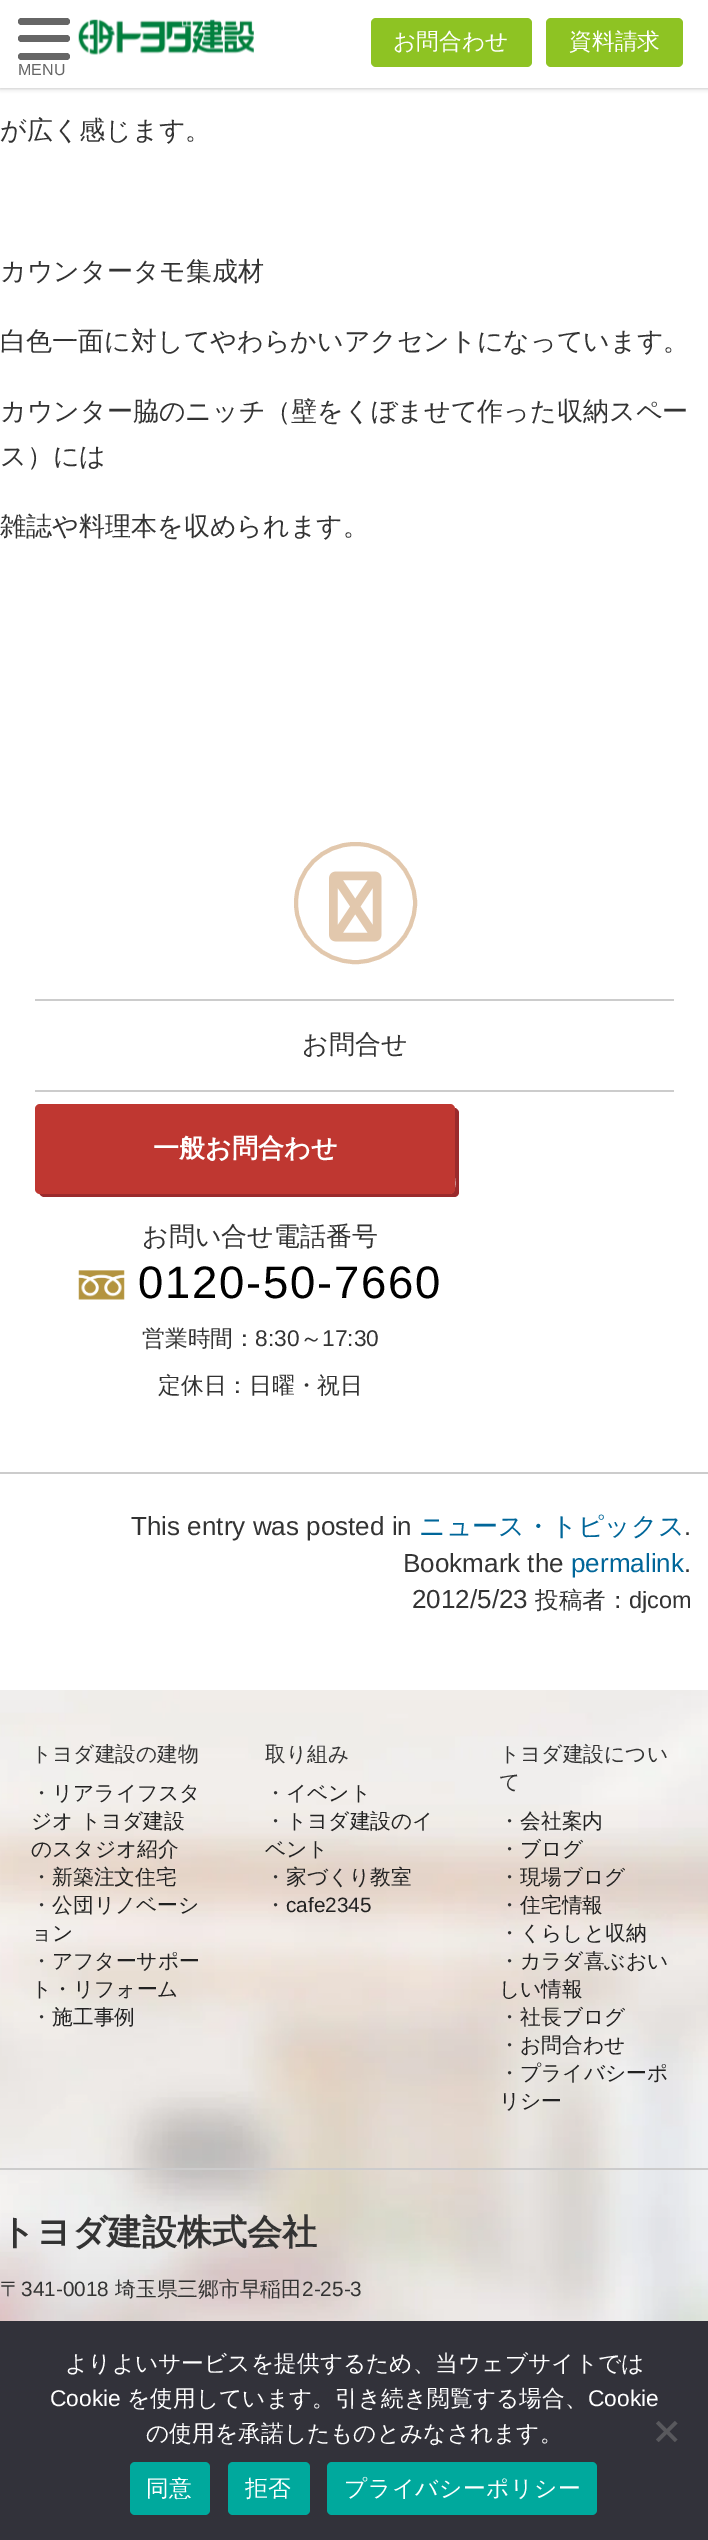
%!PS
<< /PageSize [708 2540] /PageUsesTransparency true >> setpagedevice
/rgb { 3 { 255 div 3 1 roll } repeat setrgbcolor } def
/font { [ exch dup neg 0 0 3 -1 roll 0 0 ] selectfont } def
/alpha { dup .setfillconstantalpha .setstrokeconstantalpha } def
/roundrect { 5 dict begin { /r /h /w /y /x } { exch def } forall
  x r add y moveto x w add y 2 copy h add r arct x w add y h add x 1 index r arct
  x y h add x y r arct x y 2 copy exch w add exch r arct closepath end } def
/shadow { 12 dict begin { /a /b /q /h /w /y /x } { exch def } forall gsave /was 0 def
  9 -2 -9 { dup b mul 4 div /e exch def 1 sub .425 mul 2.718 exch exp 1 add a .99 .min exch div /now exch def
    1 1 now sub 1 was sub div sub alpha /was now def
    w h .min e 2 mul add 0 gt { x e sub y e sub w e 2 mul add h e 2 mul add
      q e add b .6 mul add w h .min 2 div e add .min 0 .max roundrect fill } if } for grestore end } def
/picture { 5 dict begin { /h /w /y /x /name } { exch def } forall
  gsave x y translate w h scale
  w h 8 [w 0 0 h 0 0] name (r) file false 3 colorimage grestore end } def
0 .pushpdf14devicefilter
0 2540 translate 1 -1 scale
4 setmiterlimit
255 255 255 rgb
0 0 708 2540 rectfill
0 0 0 rgb
0 0 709 88 0 2.5 0.3 shadow
255 255 255 rgb
0 0 708 88 rectfill
(img/1.rgb) 78 19 176 36 picture
142 195 35 rgb
371 18 161 49 5 roundrect fill
546 18 137 49 5 roundrect fill
102 102 102 rgb
18 18 52 7 3.5 roundrect fill
18 35 52 7 3.5 roundrect fill
18 53 52 7 3.5 roundrect fill
204 204 204 rgb
0 1472 708 2 rectfill
226 200 173 rgb
4 setlinewidth
296 844 119 118 59 roundrect stroke
(img/2.rgb) 329 871 53 71 picture
204 204 204 rgb
35 999 639 2 rectfill
35 1090 639 2 rectfill
154 42 44 rgb
39 1193 moveto 40 1195 42 1197 44 1197 curveto 454 1197 lineto 457 1197 459 1195 459 1192 curveto 459 1113 lineto 459 1111 457 1108 455 1108 curveto 455 1175 lineto 455 1178 458 1193 450 1194 curveto closepath fill
191 55 49 rgb
35 1104 420 90 5 roundrect fill
(img/3.rgb) 78 1270 47 30 picture
(img/4.rgb) 0 1690 708 631 picture
204 204 204 rgb
0 2168 708 2 rectfill
50 50 58 rgb
0 2321 708 219 rectfill
89 89 93 rgb
675 2421 moveto 677.5 2423.5 lineto 658.5 2442 lineto 656 2439.5 lineto closepath fill
656 2423.5 moveto 658.5 2421 lineto 677.5 2439.5 lineto 675 2442 lineto closepath fill
0 169 157 rgb
130 2462 80 53 5 roundrect fill
228 2462 82 53 5 roundrect fill
327 2462 270 53 5 roundrect fill
/WenQuanYiZenHei-Medium 22.75 font
255 255 255 rgb
393 49 moveto (お問合わせ) show
569 49 moveto (資料請求) show
/LiberationSans-Regular 16 font
102 102 102 rgb
18 75 moveto (MENU) show
/WenQuanYiZenHei-Medium 26.05 font
51 51 51 rgb
[
  [(が広く感じます。) 0 139]
  [(カウンタータモ集成材) 0 280]
  [(白色一面に対してやわらかいアクセントになっています。) 0 350]
  [(カウンター脇のニッチ（壁をくぼませて作った収納スペー) 0 420]
  [(ス）には) 0 465]
  [(雑誌や料理本を収められます。) 0 535]
  [(お問合せ) 302 1053]
] { aload pop moveto show } forall
/WenQuanYiZenHei-Bold 26.05 font
255 255 255 rgb
153 1157 moveto (一般お問合わせ) show
/WenQuanYiZenHei-Medium 26.05 font
51 51 51 rgb
142 1245 moveto (お問い合せ電話番号) show
/LiberationSans-Regular 45.5 font
0 0 0 rgb
138 1298 moveto 1.75 0 (0120-50-7660) ashow
/WenQuanYiZenHei-Medium 22.75 font
51 51 51 rgb
142 1346 moveto (営業時間：) show
/LiberationSans-Regular 22.75 font
255 1346 moveto (8:30) show
/WenQuanYiZenHei-Medium 22.75 font
300 1346 moveto (～) show
/LiberationSans-Regular 22.75 font
322 1346 moveto (17:30) show
/WenQuanYiZenHei-Medium 22.75 font
158 1393 moveto (定休日：日曜・祝日) show
/LiberationSans-Regular 26.05 font
131 1535 moveto (This entry was posted in) show
/WenQuanYiZenHei-Medium 26.05 font
0 102 153 rgb
419 1535 moveto (ニュース・トピックス) show
/LiberationSans-Regular 26.05 font
51 51 51 rgb
684 1535 moveto (.) show
403 1572 moveto (Bookmark the) show
0 102 153 rgb
571 1572 moveto (permalink) show
51 51 51 rgb
684 1572 moveto (.) show
412 1608 moveto (2012/5/23) show
/WenQuanYiZenHei-Medium 23.5 font
535 1608 moveto (投稿者：) show
/LiberationSans-Regular 23.5 font
629 1608 moveto (djcom) show
/WenQuanYiZenHei-Medium 20.75 font
31 1761 moveto (トヨダ建設の建物) show
31 1800 moveto (・) show
34 34 34 rgb
[
  [(リアライフスタ) 52 1800]
  [(ジオ トヨダ建設) 31 1828]
  [(のスタジオ紹介) 31 1856]
] { aload pop moveto show } forall
51 51 51 rgb
31 1884 moveto (・) show
34 34 34 rgb
52 1884 moveto (新築注文住宅) show
51 51 51 rgb
31 1912 moveto (・) show
34 34 34 rgb
52 1912 moveto (公団リノベーシ) show
31 1940 moveto (ョン) show
51 51 51 rgb
31 1968 moveto (・) show
34 34 34 rgb
52 1968 moveto (アフターサポー) show
31 1996 moveto (ト・リフォーム) show
51 51 51 rgb
31 2024 moveto (・) show
34 34 34 rgb
52 2024 moveto (施工事例) show
51 51 51 rgb
265 1761 moveto (取り組み) show
265 1800 moveto (・) show
34 34 34 rgb
286 1800 moveto (イベント) show
51 51 51 rgb
265 1828 moveto (・) show
34 34 34 rgb
286 1828 moveto (トヨダ建設のイ) show
265 1856 moveto (ベント) show
51 51 51 rgb
265 1884 moveto (・) show
34 34 34 rgb
286 1884 moveto (家づくり教室) show
51 51 51 rgb
265 1912 moveto (・) show
/LiberationSans-Regular 20.75 font
34 34 34 rgb
286 1912 moveto (cafe2345) show
/WenQuanYiZenHei-Medium 20.75 font
51 51 51 rgb
[
  [(トヨダ建設につい) 499 1761]
  [(て) 499 1789]
  [(・) 499 1828]
] { aload pop moveto show } forall
34 34 34 rgb
520 1828 moveto (会社案内) show
51 51 51 rgb
499 1856 moveto (・) show
34 34 34 rgb
520 1856 moveto (ブログ) show
51 51 51 rgb
499 1884 moveto (・) show
34 34 34 rgb
520 1884 moveto (現場ブログ) show
51 51 51 rgb
499 1912 moveto (・) show
34 34 34 rgb
520 1912 moveto (住宅情報) show
51 51 51 rgb
499 1940 moveto (・) show
34 34 34 rgb
520 1940 moveto (くらしと収納) show
51 51 51 rgb
499 1968 moveto (・) show
34 34 34 rgb
520 1968 moveto (カラダ喜ぶおい) show
499 1996 moveto (しい情報) show
51 51 51 rgb
499 2024 moveto (・) show
34 34 34 rgb
520 2024 moveto (社長ブログ) show
51 51 51 rgb
499 2052 moveto (・) show
34 34 34 rgb
520 2052 moveto (お問合わせ) show
51 51 51 rgb
499 2080 moveto (・) show
34 34 34 rgb
520 2080 moveto (プライバシーポ) show
499 2108 moveto (リシー) show
/WenQuanYiZenHei-Bold 35 font
51 51 51 rgb
0 2244 moveto (トヨダ建設株式会社) show
/WenQuanYiZenHei-Medium 20.75 font
0 2296 moveto (〒) show
/LiberationSans-Regular 20.75 font
21 2296 moveto (341-0018) show
/WenQuanYiZenHei-Medium 20.75 font
115 2296 moveto (埼玉県三郷市早稲田) show
/LiberationSans-Regular 20.75 font
302 2296 moveto (2-25-3) show
/WenQuanYiZenHei-Medium 22.75 font
255 255 255 rgb
65 2371 moveto (よりよいサービスを提供するため、当ウェブサイトでは) show
/LiberationSans-Regular 22.75 font
50 2406 moveto (Cookie) show
/WenQuanYiZenHei-Medium 22.75 font
127 2406 moveto (を使用しています。引き続き閲覧する場合、) show
/LiberationSans-Regular 22.75 font
588 2406 moveto (Cookie) show
/WenQuanYiZenHei-Medium 22.75 font
146 2441 moveto (の使用を承諾したものとみなされます。) show
146 2496 moveto 0.5 0 (同意) ashow
245 2496 moveto 0.5 0 (拒否) ashow
344 2496 moveto 0.5 0 (プライバシーポリシー) ashow
.poppdf14devicefilter showpage
